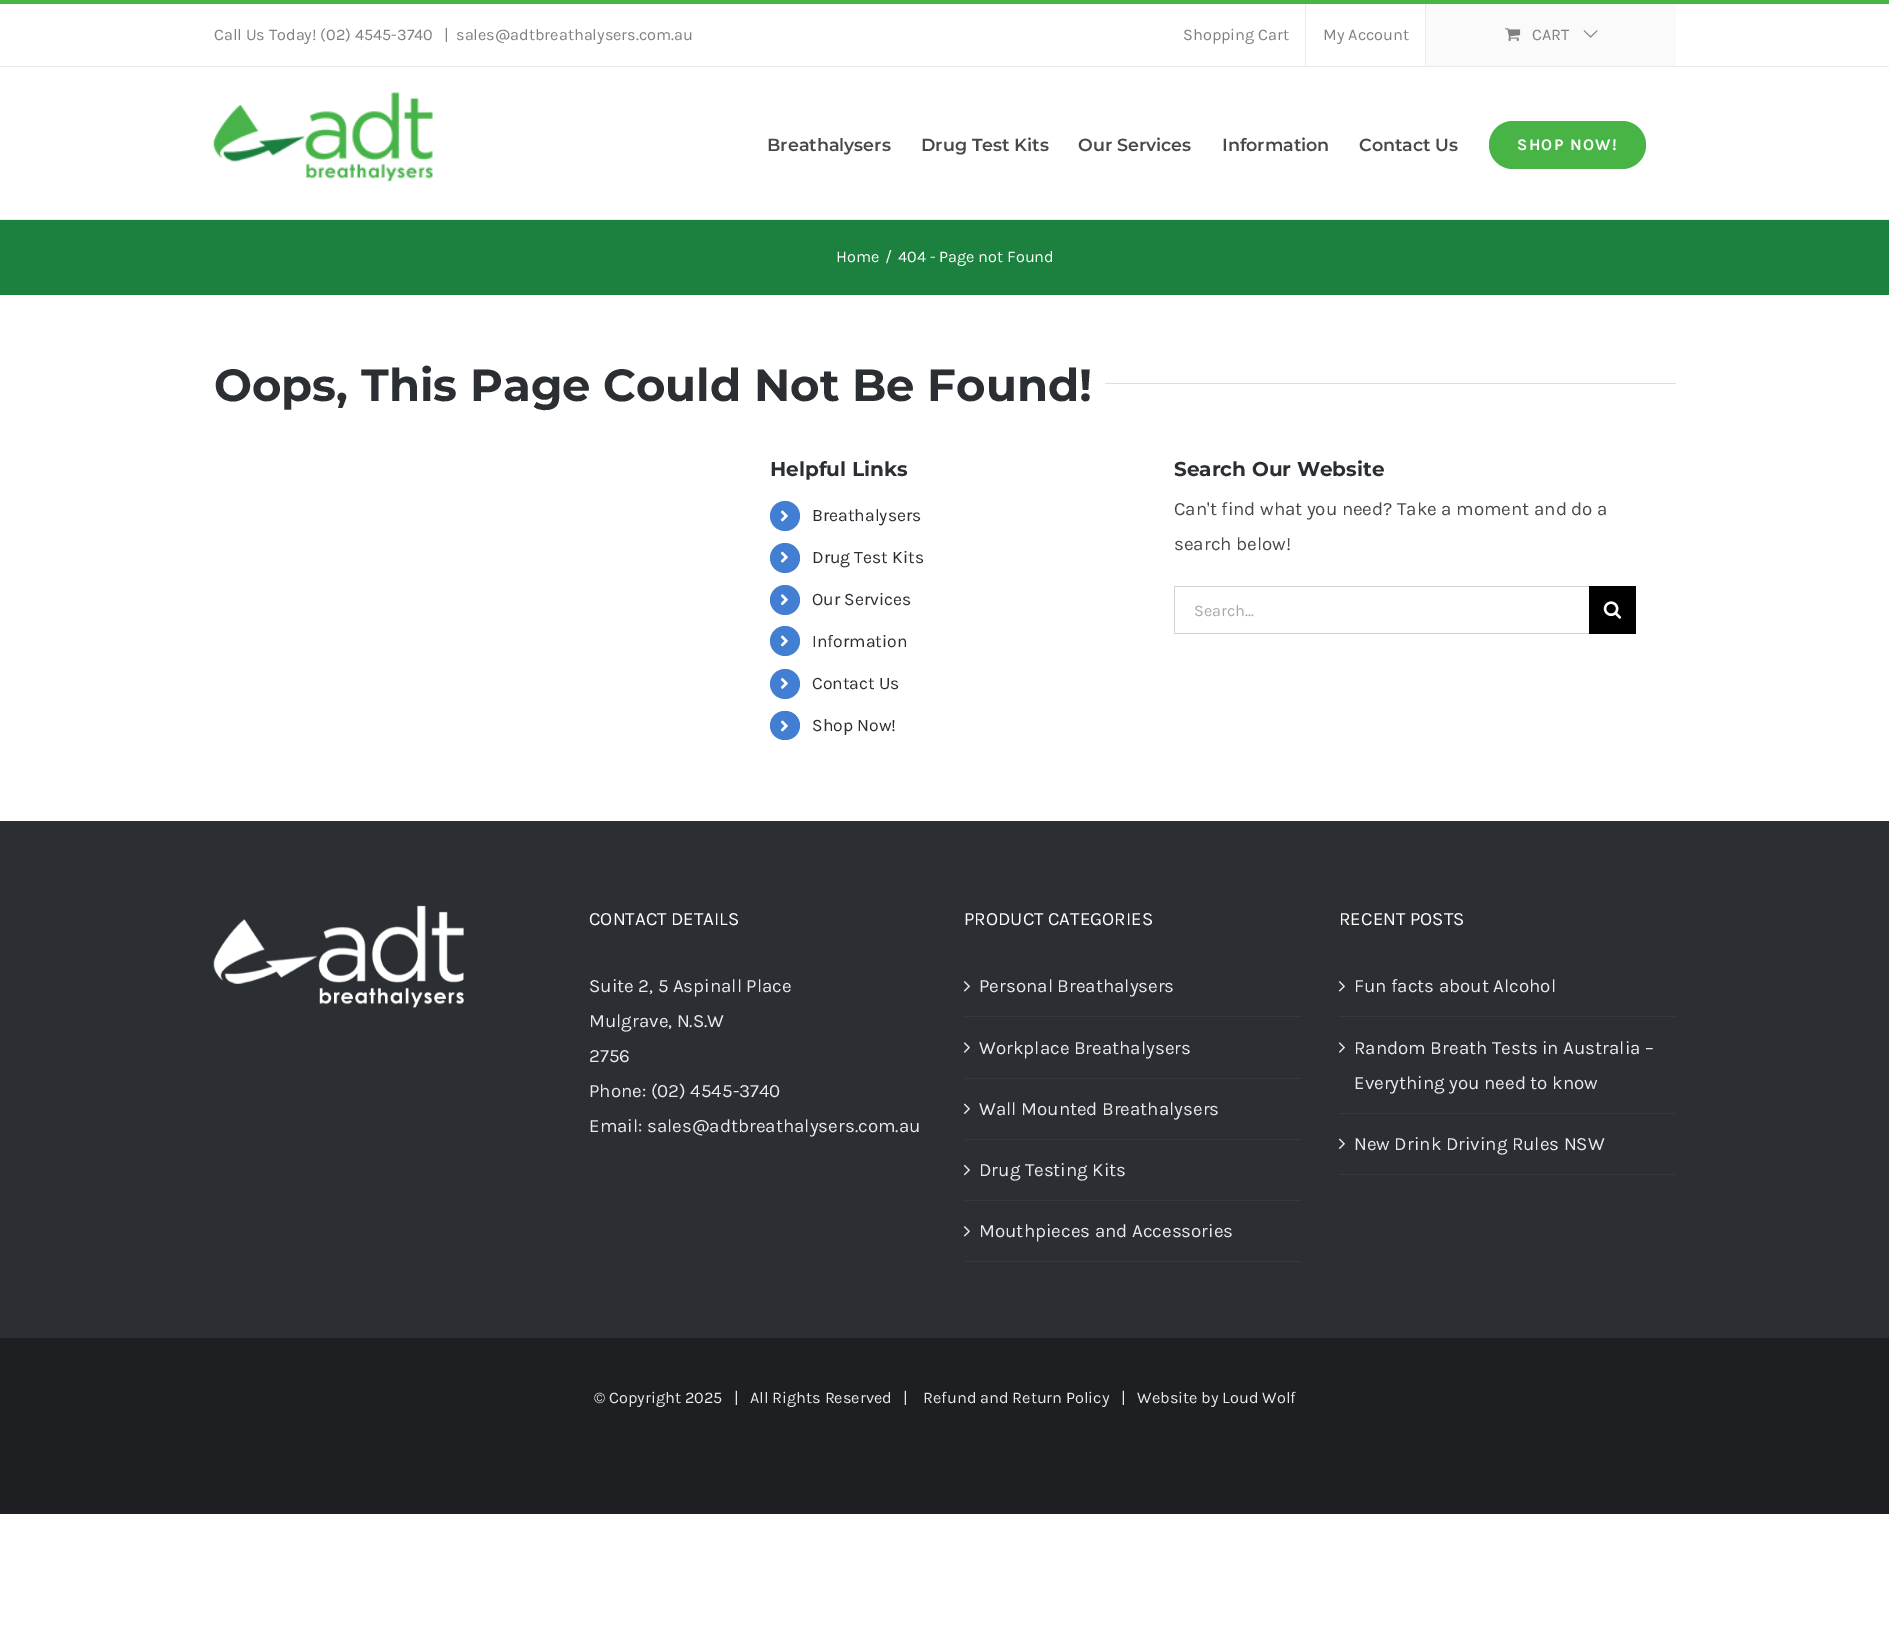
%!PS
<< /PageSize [1889 1637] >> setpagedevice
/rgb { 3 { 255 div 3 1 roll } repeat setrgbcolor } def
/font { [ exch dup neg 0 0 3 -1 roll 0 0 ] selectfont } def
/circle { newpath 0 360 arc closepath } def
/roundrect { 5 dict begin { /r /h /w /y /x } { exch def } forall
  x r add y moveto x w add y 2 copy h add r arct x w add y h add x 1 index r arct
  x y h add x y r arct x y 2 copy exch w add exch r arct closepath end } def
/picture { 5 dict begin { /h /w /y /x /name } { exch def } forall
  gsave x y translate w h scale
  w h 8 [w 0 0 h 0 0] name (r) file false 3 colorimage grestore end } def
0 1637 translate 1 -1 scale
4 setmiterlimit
255 255 255 rgb
0 0 1889 1637 rectfill
[
  [0 0 1889 4 72 180 69]
  [0 66 1889 1 234 234 234]
  [1305 4 1 62 234 234 234]
  [1425 4 1 62 234 234 234]
  [1426 4 250 62 250 250 250]
] { aload pop rgb rectfill } forall
(img/1.rgb) 1505 28 16 13 picture
(img/2.rgb) 1583 30 15 8 picture
234 234 234 rgb
0 219 1889 1 rectfill
(img/3.rgb) 213 92 220 90 picture
72 180 69 rgb
1489 121 157 48 24 roundrect fill
28 128 63 rgb
0 220 1889 75 rectfill
224 222 222 rgb
1105 383 571 1 rectfill
66 126 209 rgb
785 516 15 circle fill
(img/4.rgb) 780 510 8 12 picture
785 558 15 circle fill
(img/5.rgb) 780 551 8 12 picture
785 600 15 circle fill
(img/6.rgb) 780 594 8 12 picture
785 641 15 circle fill
(img/4.rgb) 780 635 8 12 picture
785 684 15 circle fill
(img/7.rgb) 780 678 8 11 picture
770 711 30 29 14.5 roundrect fill
(img/4.rgb) 780 720 8 12 picture
[
  [1174 586 415 1 210 210 210]
  [1174 633 415 1 210 210 210]
  [1174 586 1 48 210 210 210]
  [1589 586 47 48 0 0 0]
] { aload pop rgb rectfill } forall
(img/8.rgb) 1603 601 19 18 picture
43 46 50 rgb
0 821 1889 517 rectfill
(img/9.rgb) 213 905 251 103 picture
53 56 60 rgb
964 1016 337 1 rectfill
(img/10.rgb) 963 981 7 11 picture
964 1078 337 1 rectfill
(img/11.rgb) 963 1042 7 11 picture
964 1139 337 1 rectfill
(img/12.rgb) 963 1103 7 11 picture
964 1200 337 1 rectfill
(img/13.rgb) 963 1164 7 12 picture
964 1261 337 1 rectfill
(img/10.rgb) 963 1226 7 11 picture
1339 1016 337 1 rectfill
(img/10.rgb) 1338 981 7 11 picture
1339 1113 337 1 rectfill
(img/11.rgb) 1338 1042 7 11 picture
1339 1174 337 1 rectfill
(img/12.rgb) 1338 1138 7 11 picture
29 31 34 rgb
0 1338 1889 176 rectfill
/Karla-Regular 16.25 font
128 128 128 rgb
[
  [(Call Us Today! \(02\) 4545-3740) 214 40]
  [(|) 444 40]
  [(sales@adtbreathalysers.com.au) 456 40]
  [(Shopping Cart) 1183 40]
  [(My Account) 1323 40]
  [(CART) 1532 40]
] { aload pop moveto show } forall
/Montserrat-SemiBold 17.5 font
73 73 73 rgb
[
  [(Breathalysers) 767 151]
  [(Drug Test Kits) 921 151]
  [(Our Services) 1078 151]
  [(Information) 1222 151]
  [(Contact Us) 1359 151]
] { aload pop moveto show } forall
/Karla-Bold 16.25 font
255 255 255 rgb
1517 150 moveto 1.25 0 (SHOP NOW!) ashow
/Karla-Regular 16.25 font
[
  [(Home) 836 262]
  [(/) 885 262]
  [(404 - Page not Found) 898 262]
] { aload pop moveto show } forall
/Montserrat-Bold 45 font
43 46 50 rgb
214 401 moveto (Oops, This Page Could Not Be Found!) show
/Montserrat-Bold 20 font
770 476 moveto (Helpful Links) show
/Karla-Regular 17.5 font
[
  [(Breathalysers) 812 521]
  [(Drug Test Kits) 812 563]
  [(Our Services) 812 605]
  [(Information) 812 647]
  [(Contact Us) 812 689]
  [(Shop Now!) 812 731]
] { aload pop moveto show } forall
/Montserrat-Bold 20 font
1174 476 moveto (Search Our Website) show
/Karla-Regular 18.75 font
73 73 73 rgb
1174 515 moveto (Can't find what you need? Take a moment and do a) show
1174 550 moveto (search below!) show
/Karla-Regular 16.25 font
170 169 169 rgb
1194 616 moveto (Search...) show
/Karla-Regular 18.75 font
255 255 255 rgb
589 925 moveto (CONTACT DETAILS) show
234 234 234 rgb
[
  [(Suite 2, 5 Aspinall Place) 589 992]
  [(Mulgrave, N.S.W) 589 1027]
  [(2756) 589 1062]
  [(Phone: \(02\) 4545-3740) 589 1097]
  [(Email: sales@adtbreathalysers.com.au) 589 1132]
] { aload pop moveto show } forall
255 255 255 rgb
964 925 moveto (PRODUCT CATEGORIES) show
234 234 234 rgb
[
  [(Personal Breathalysers) 979 992]
  [(Workplace Breathalysers) 979 1054]
  [(Wall Mounted Breathalysers) 979 1115]
  [(Drug Testing Kits) 979 1176]
  [(Mouthpieces and Accessories) 979 1237]
] { aload pop moveto show } forall
255 255 255 rgb
1339 925 moveto (RECENT POSTS) show
234 234 234 rgb
[
  [(Fun facts about Alcohol) 1354 992]
  [(Random Breath Tests in Australia –) 1354 1054]
  [(Everything you need to know) 1354 1089]
  [(New Drink Driving Rules NSW) 1354 1150]
] { aload pop moveto show } forall
/Karla-Regular 16.25 font
[
  [(© Copyright 2025   |   All Rights Reserved   |) 594 1403]
  [(Refund and Return Policy) 923 1403]
  [(|   Website by Loud Wolf) 1121 1403]
] { aload pop moveto show } forall
showpage
